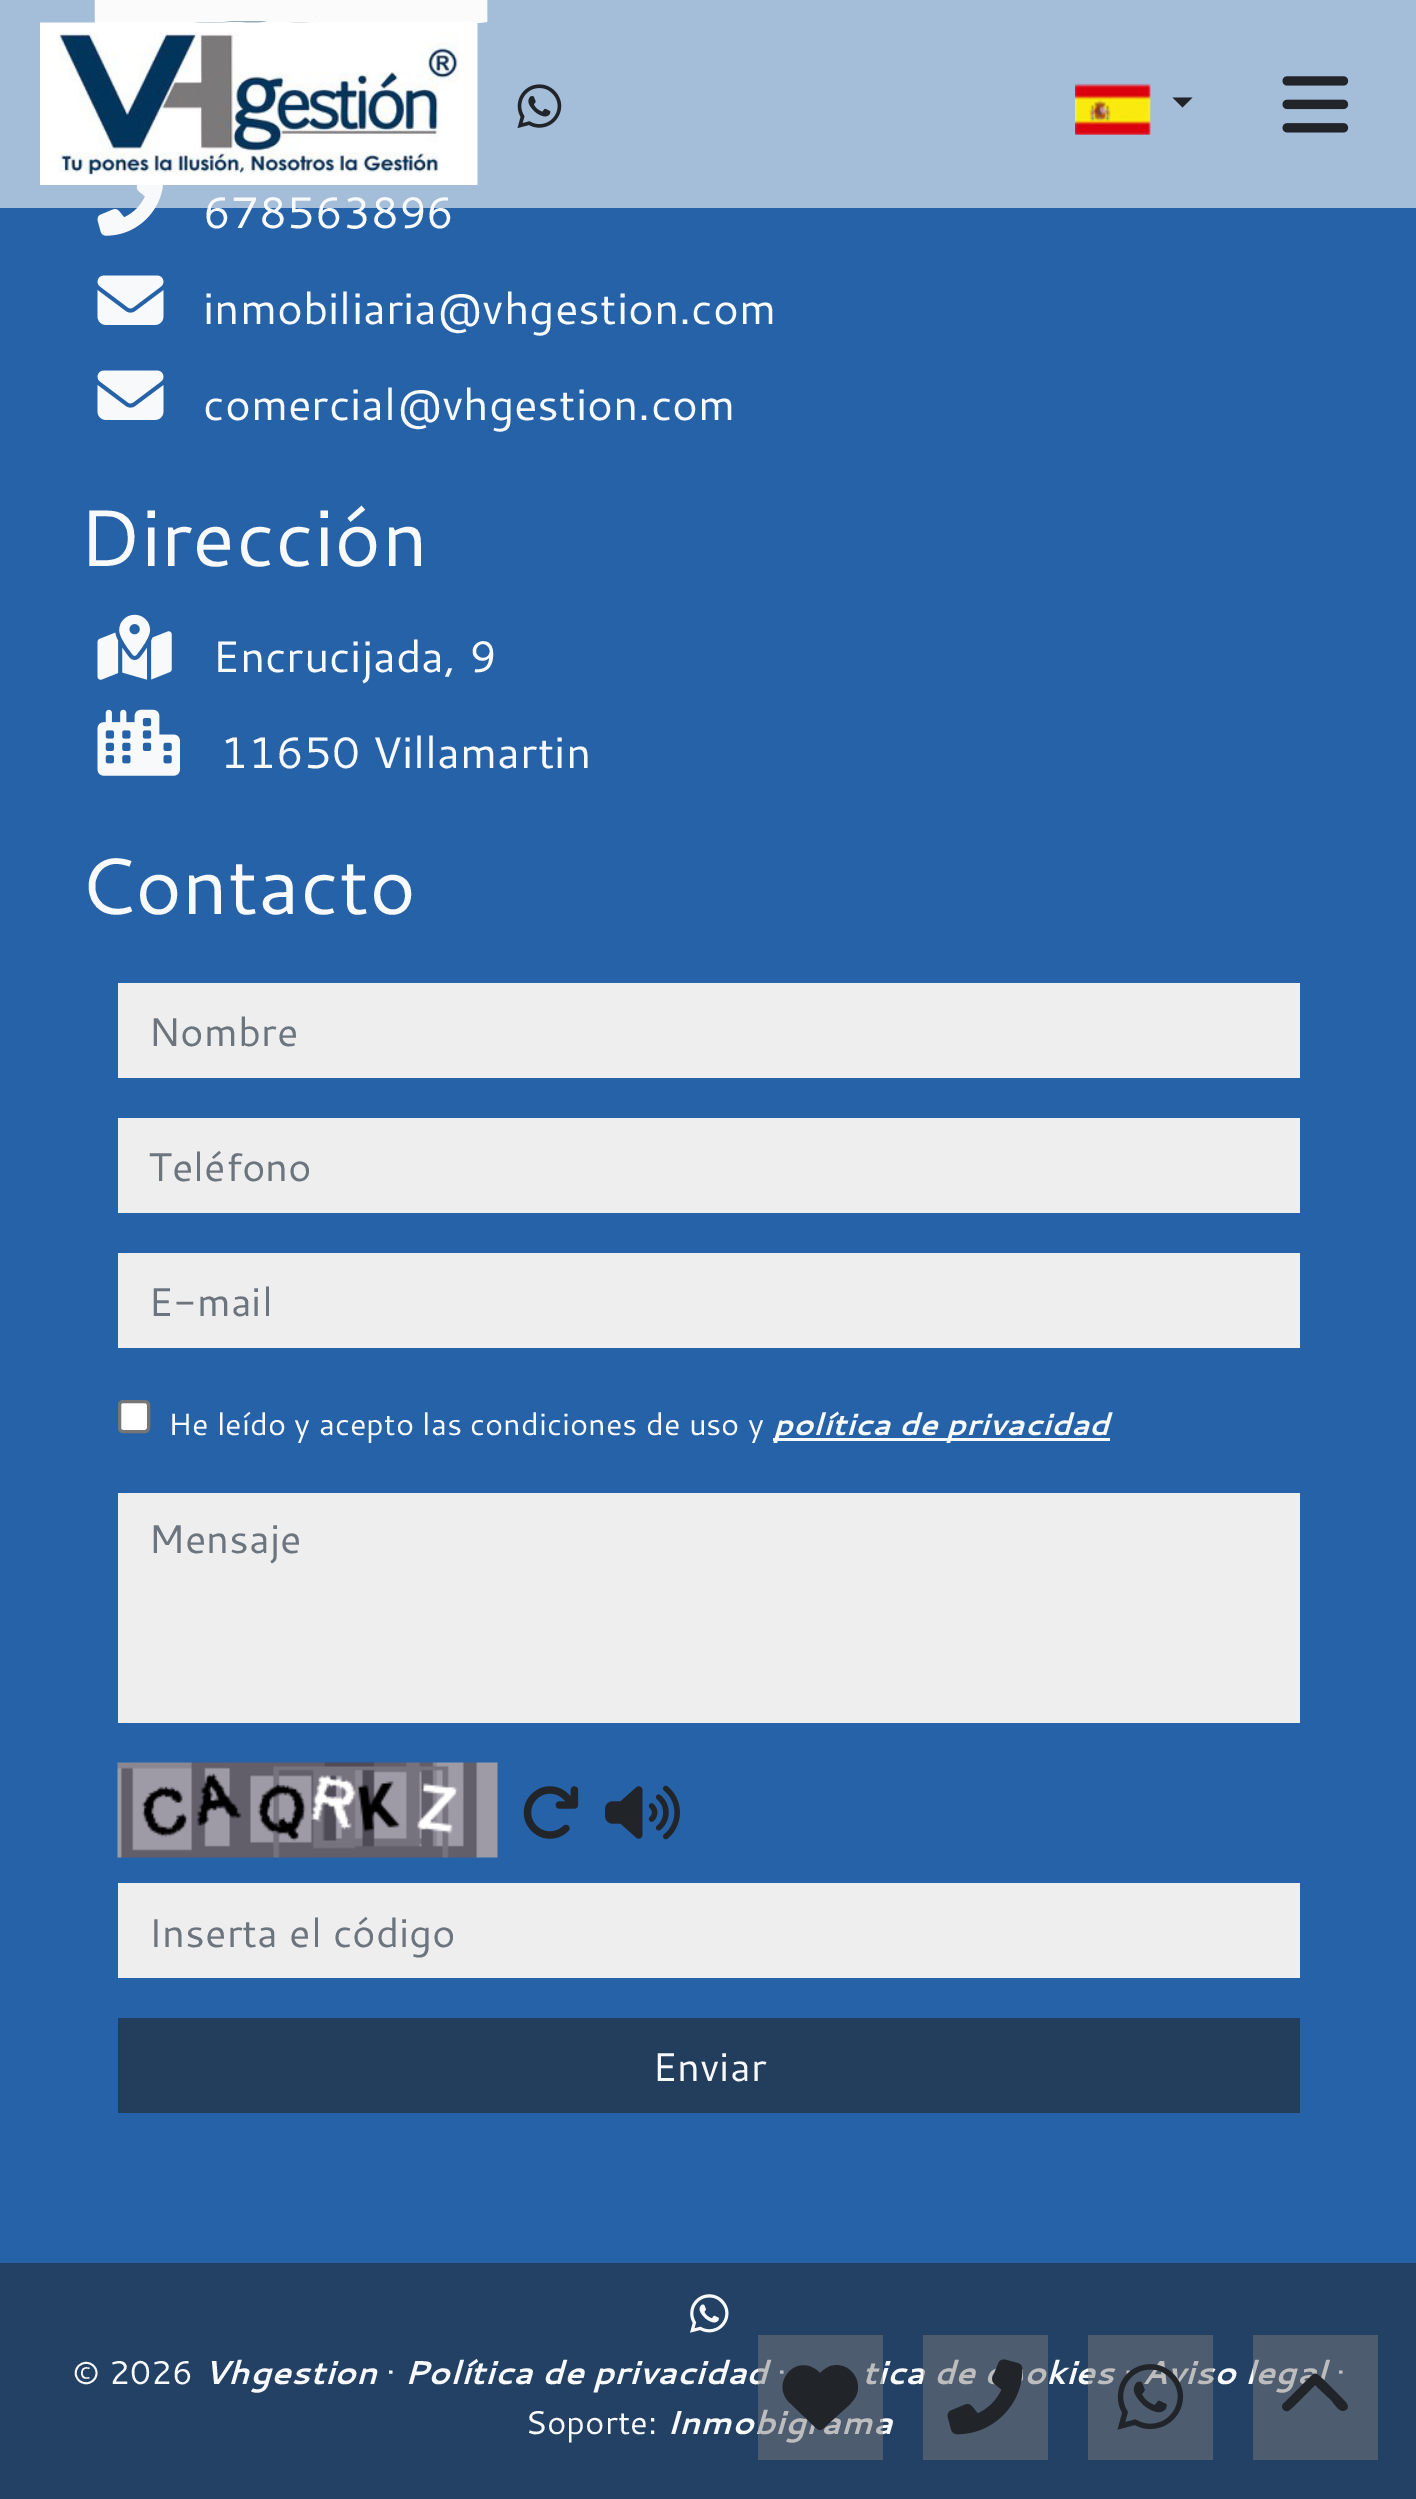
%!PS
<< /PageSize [1416 2499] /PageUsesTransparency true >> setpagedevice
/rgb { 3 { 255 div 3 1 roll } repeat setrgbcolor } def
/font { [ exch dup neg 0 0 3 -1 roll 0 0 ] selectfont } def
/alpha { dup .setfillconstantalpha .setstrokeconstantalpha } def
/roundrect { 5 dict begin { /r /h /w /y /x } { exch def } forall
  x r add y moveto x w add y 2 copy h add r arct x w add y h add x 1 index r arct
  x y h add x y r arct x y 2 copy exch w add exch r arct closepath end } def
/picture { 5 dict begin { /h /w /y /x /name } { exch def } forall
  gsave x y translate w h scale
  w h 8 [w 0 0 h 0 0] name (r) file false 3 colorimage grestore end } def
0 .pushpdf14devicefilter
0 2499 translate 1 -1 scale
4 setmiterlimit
38 98 168 rgb
0 0 1416 2499 rectfill
(img/5.rgb) 94 0 222 23 picture
(img/6.rgb) 94 0 9 23 picture
(img/7.rgb) 315 0 173 23 picture
(img/8.rgb) 315 0 173 23 picture
(img/9.rgb) 165 17 321 6 picture
(img/10.rgb) 97 185 66 51 picture
(img/11.rgb) 97 275 67 50 picture
(img/11.rgb) 97 370 67 50 picture
(img/12.rgb) 97 614 75 66 picture
(img/13.rgb) 97 709 83 67 picture
[
  [118 983 1182 95 238 238 238]
  [118 1118 1182 95 238 238 238]
  [118 1253 1182 95 238 238 238]
] { aload pop rgb rectfill } forall
255 255 255 rgb
119.5 1401.5 29 30 3.5 roundrect gsave fill grestore
118 118 118 rgb
3 setlinewidth
stroke
248 249 250 rgb
773 1438 337 3 rectfill
238 238 238 rgb
118 1493 1182 230 rectfill
(img/14.rgb) 117 1762 381 96 picture
(img/15.rgb) 523 1786 56 53 picture
(img/16.rgb) 605 1785 75 55 picture
[
  [118 1883 1182 95 238 238 238]
  [118 2018 1182 95 35 61 92]
  [0 2263 1416 236 35 65 100]
] { aload pop rgb rectfill } forall
(img/17.rgb) 690 2294 39 39 picture
/Cantarell-Regular 44 font
248 249 250 rgb
203 228 moveto (678563896) show
0.6 alpha
0 0 1416 208 rectfill
1 alpha
33 37 41 rgb
1172.5 97.5 moveto 1192.5 97.5 lineto 1182.5 107.5 lineto closepath fill
(img/3.rgb) 1075 83 76 52 picture
(img/4.rgb) 1282 76 67 57 picture
(img/2.rgb) 517 84 45 45 picture
(img/1.rgb) 40 22 438 163 picture
248 249 250 rgb
203 324 moveto (inmobiliaria@vhgestion.com) show
203 420 moveto (comercial@vhgestion.com) show
/Cantarell-Regular 80 font
78 566 moveto (Dirección) show
/Cantarell-Regular 44 font
212 672 moveto (Encrucijada, 9) show
220 768 moveto (11650 Villamartin) show
/Cantarell-Regular 80 font
78 914 moveto (Contacto) show
/Cantarell-Regular 40 font
108 117 125 rgb
[
  [(Nombre) 148 1046]
  [(Teléfono) 148 1181]
  [(E-mail) 148 1316]
] { aload pop moveto show } forall
/Cantarell-Regular 30.75 font
248 249 250 rgb
168 1435 moveto (He leído y acepto las condiciones de uso y) show
/Cantarell-BoldItalic 30.75 font
773 1435 moveto (política de privacidad) show
/Cantarell-Regular 40 font
108 117 125 rgb
148 1553 moveto (Mensaje) show
148 1947 moveto (Inserta el código) show
248 249 250 rgb
652 2081 moveto (Enviar) show
/Cantarell-Regular 33 font
72 2384 moveto (© 2026) show
/Cantarell-BoldItalic 33 font
203 2384 moveto (Vhgestion) show
/Cantarell-Regular 33 font
386 2384 moveto (·) show
/Cantarell-BoldItalic 33 font
404 2384 moveto (Política de privacidad) show
/Cantarell-Regular 33 font
777 2384 moveto (·) show
/Cantarell-BoldItalic 33 font
[
  [(tica de) 862 2384]
  [(okies) 1024 2384]
  [(Aviso legal) 1142 2384]
] { aload pop moveto show } forall
/Cantarell-Regular 33 font
1336 2384 moveto (·) show
525 2434 moveto (Soporte:) show
/Cantarell-BoldItalic 33 font
666 2434 moveto (Inmobigrama) show
0.47 alpha
124 122 123 rgb
758 2335 125 125 rectfill
1 alpha
33 37 41 rgb
790 2403 moveto 816 2428 lineto 790 2403 lineto 812 2424 lineto 820 2432 820 2432 828 2424 curveto 837 2416 lineto 843 2410 852 2404 856 2396 curveto 864 2378 846 2359 828 2367 curveto 825 2369 822 2371 820 2373 curveto 797 2350 769 2384 790 2403 curveto closepath fill
0.47 alpha
124 122 123 rgb
923 2335 125 125 rectfill
1 alpha
(img/18.rgb) 947 2359 76 76 picture
0.47 alpha
1088 2335 125 125 rectfill
1 alpha
(img/19.rgb) 1117 2364 67 66 picture
0.47 alpha
1253 2335 125 125 rectfill
1 alpha
33 37 41 rgb
1312 2375 moveto 1316 2371 1320 2377 1323 2379 curveto 1342 2398 lineto 1344 2401 1350 2405 1347 2409 curveto 1346 2410 1344 2411 1343 2411 curveto 1339 2411 1334 2404 1332 2401 curveto 1315 2385 lineto 1311 2389 1291 2410 1288 2411 curveto 1283 2412 1280 2406 1284 2403 curveto closepath fill
.poppdf14devicefilter showpage
